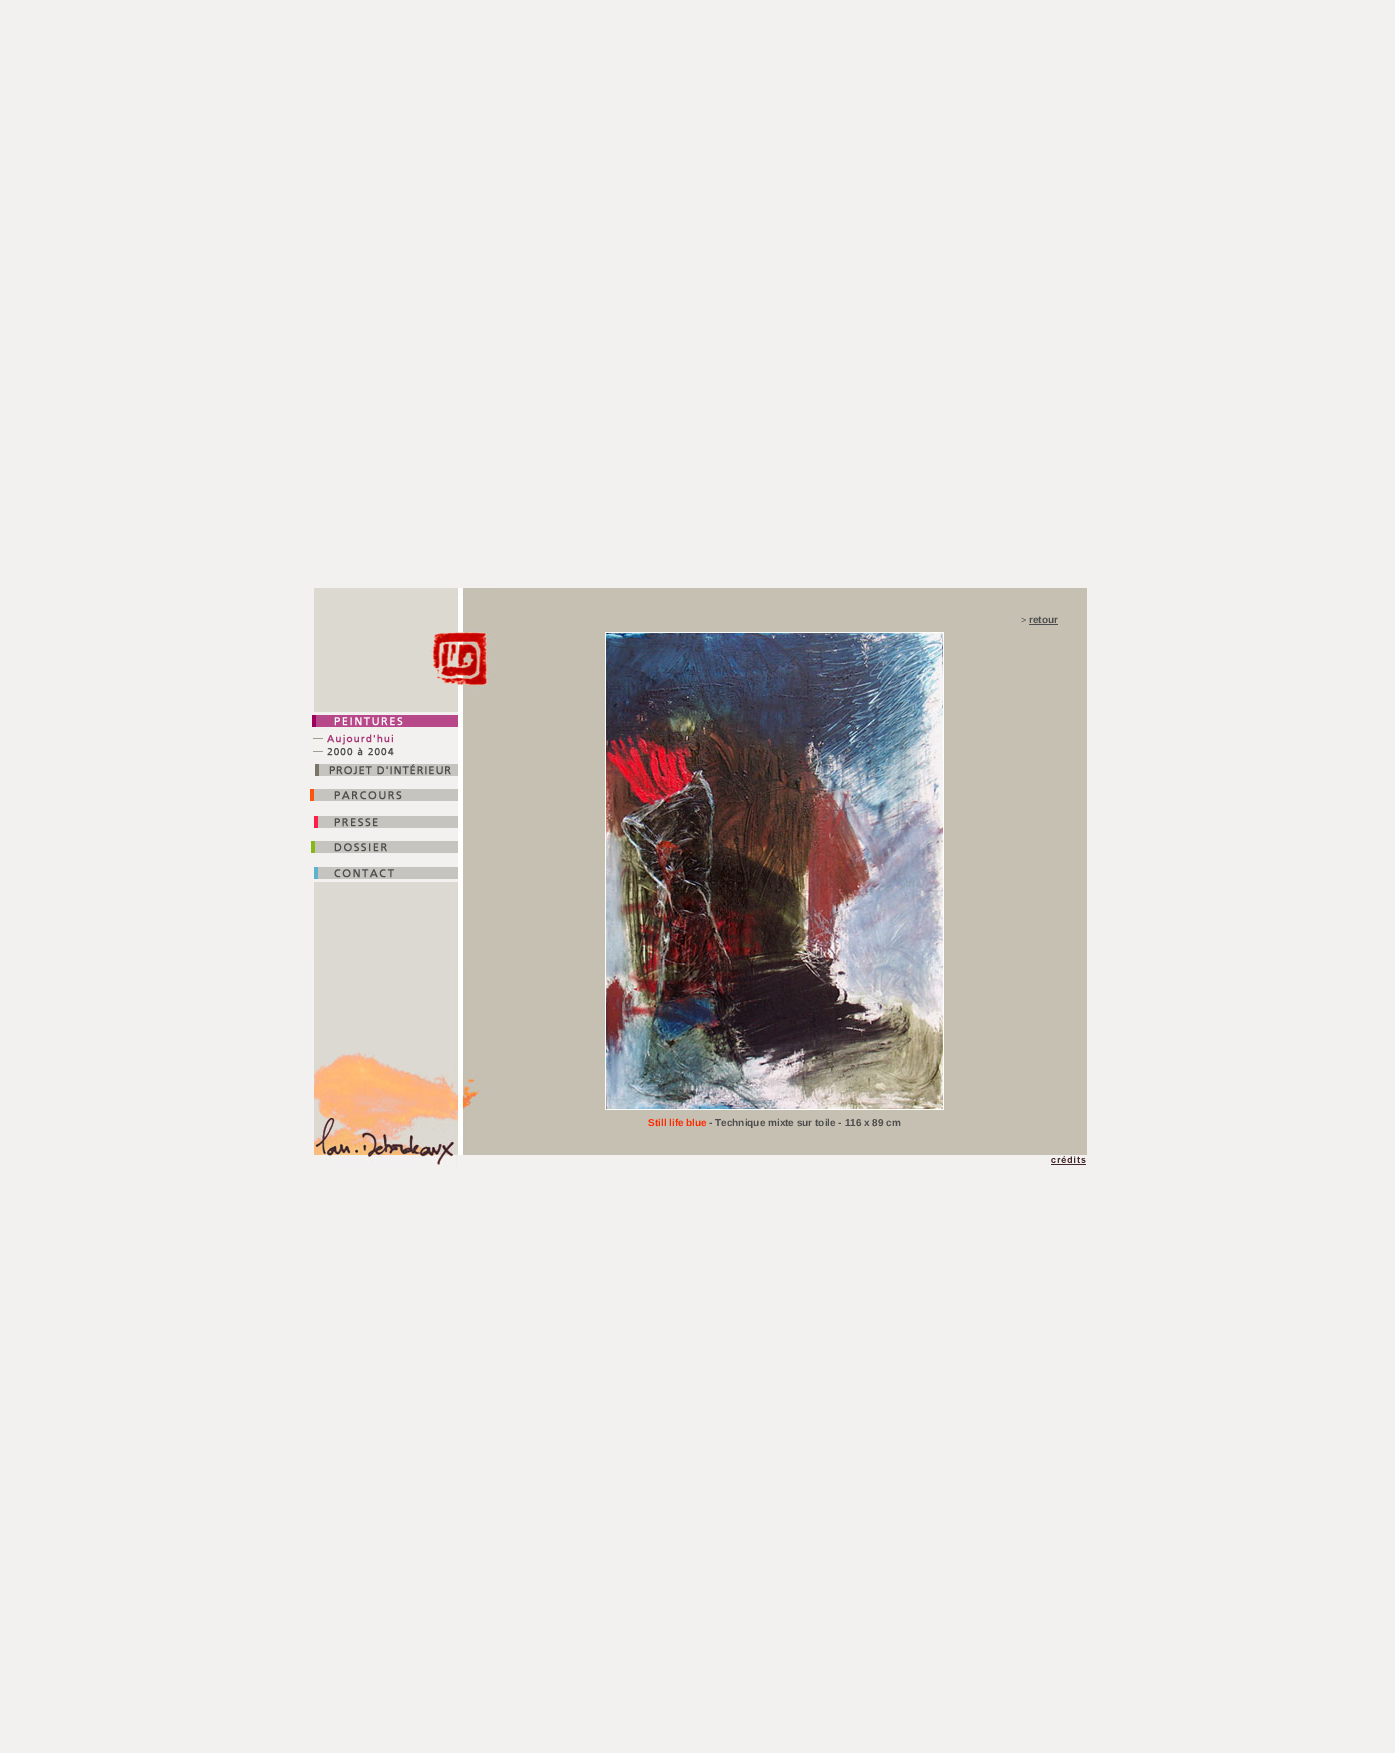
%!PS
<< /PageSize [1395 1753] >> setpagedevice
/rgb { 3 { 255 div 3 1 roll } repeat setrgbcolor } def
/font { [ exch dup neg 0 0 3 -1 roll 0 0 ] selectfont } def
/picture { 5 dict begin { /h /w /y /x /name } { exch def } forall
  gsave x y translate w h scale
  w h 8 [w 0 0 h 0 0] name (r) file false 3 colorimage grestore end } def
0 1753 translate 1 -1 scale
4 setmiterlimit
242 241 240 rgb
0 0 1395 1753 rectfill
(img/1.rgb) 312 715 146 12 picture
(img/2.rgb) 313 734 80 11 picture
(img/3.rgb) 313 747 81 9 picture
(img/4.rgb) 315 764 143 12 picture
(img/5.rgb) 310 789 148 12 picture
(img/6.rgb) 314 816 144 12 picture
(img/7.rgb) 311 841 147 12 picture
(img/8.rgb) 314 867 144 12 picture
(img/9.rgb) 314 882 144 80 picture
255 255 255 rgb
458 712 5 250 rectfill
197 192 178 rgb
463 712 26 250 rectfill
(img/10.rgb) 314 588 144 124 picture
(img/11.rgb) 458 588 31 124 picture
489 588 598 567 rectfill
77 77 77 rgb
1029 624 29 1 rectfill
(img/12.rgb) 605 632 339 478 picture
(img/13.rgb) 309 962 180 193 picture
(img/14.rgb) 325 1155 132 11 picture
(img/15.rgb) 1051 1156 35 9 picture
/LiberationSans-Regular 9 font
1021 623 moveto (>) show
/LiberationSans-Bold 10 font
1029 623 moveto (retour) show
255 42 0 rgb
648 1126 moveto (Still life blue) show
77 77 77 rgb
709 1126 moveto (- Technique mixte sur toile - 116 x 89 cm) show
showpage
